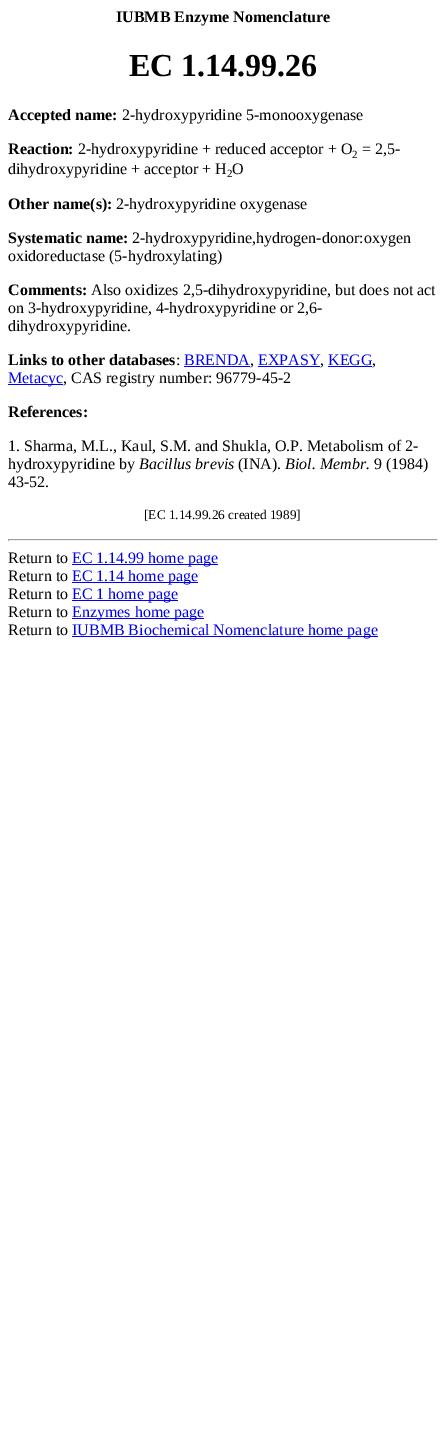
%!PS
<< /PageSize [446 1435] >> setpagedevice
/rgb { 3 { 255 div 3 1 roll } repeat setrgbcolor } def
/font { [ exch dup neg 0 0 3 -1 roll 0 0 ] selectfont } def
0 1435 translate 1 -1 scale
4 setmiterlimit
255 255 255 rgb
0 0 446 1435 rectfill
[
  [184 366 66 1 0 0 238]
  [258 366 62 1 0 0 238]
  [328 366 44 1 0 0 238]
  [8 384 55 1 0 0 238]
  [8 539 430 1 159 159 159]
  [437 539 1 2 238 238 238]
  [8 540 430 1 238 238 238]
  [8 539 1 2 159 159 159]
  [72 564 146 1 0 0 238]
  [72 582 126 1 0 0 238]
  [72 600 106 1 0 0 238]
  [72 618 132 1 0 0 238]
  [72 636 306 1 0 0 238]
] { aload pop rgb rectfill } forall
/LiberationSerif-Bold 16 font
0 0 0 rgb
116 22 moveto (IUBMB Enzyme Nomenclature) show
/LiberationSerif-Bold 32 font
129 76 moveto (EC 1.14.99.26) show
/LiberationSerif-Bold 16 font
8 120 moveto (Accepted name:) show
/LiberationSerif-Regular 16 font
122 120 moveto (2-hydroxypyridine 5-monooxygenase) show
/LiberationSerif-Bold 16 font
8 154 moveto (Reaction:) show
/LiberationSerif-Regular 16 font
78 154 moveto (2-hydroxypyridine + reduced acceptor + O) show
/LiberationSerif-Regular 11 font
352 158 moveto (2) show
/LiberationSerif-Regular 16 font
362 154 moveto (= 2,5-) show
8 174 moveto (dihydroxypyridine + acceptor + H) show
/LiberationSerif-Regular 11 font
227 177 moveto (2) show
/LiberationSerif-Regular 16 font
232 174 moveto (O) show
/LiberationSerif-Bold 16 font
8 209 moveto (Other name\(s\):) show
/LiberationSerif-Regular 16 font
116 209 moveto (2-hydroxypyridine oxygenase) show
/LiberationSerif-Bold 16 font
8 243 moveto (Systematic name:) show
/LiberationSerif-Regular 16 font
132 243 moveto (2-hydroxypyridine,hydrogen-donor:oxygen) show
8 261 moveto (oxidoreductase \(5-hydroxylating\)) show
/LiberationSerif-Bold 16 font
8 295 moveto (Comments:) show
/LiberationSerif-Regular 16 font
[
  [(Also oxidizes 2,5-dihydroxypyridine, but does not act) 91 295]
  [(on 3-hydroxypyridine, 4-hydroxypyridine or 2,6-) 8 313]
  [(dihydroxypyridine.) 8 331]
] { aload pop moveto show } forall
/LiberationSerif-Bold 16 font
8 365 moveto (Links to other databases) show
/LiberationSerif-Regular 16 font
176 365 moveto (:) show
0 0 238 rgb
184 365 moveto (BRENDA) show
0 0 0 rgb
250 365 moveto (,) show
0 0 238 rgb
258 365 moveto (EXPASY) show
0 0 0 rgb
320 365 moveto (,) show
0 0 238 rgb
328 365 moveto (KEGG) show
0 0 0 rgb
372 365 moveto (,) show
0 0 238 rgb
8 383 moveto (Metacyc) show
0 0 0 rgb
63 383 moveto (, CAS registry number: 96779-45-2) show
/LiberationSerif-Bold 16 font
8 417 moveto (References:) show
/LiberationSerif-Regular 16 font
8 451 moveto (1. Sharma, M.L., Kaul, S.M. and Shukla, O.P. Metabolism of 2-) show
8 469 moveto (hydroxypyridine by) show
/LiberationSerif-Italic 16 font
139 469 moveto (Bacillus brevis) show
/LiberationSerif-Regular 16 font
238 469 moveto (\(INA\).) show
/LiberationSerif-Italic 16 font
285 469 moveto (Biol. Membr.) show
/LiberationSerif-Regular 16 font
374 469 moveto (9 \(1984\)) show
8 487 moveto (43-52.) show
/LiberationSerif-Regular 13.25 font
144 519 moveto ([EC 1.14.99.26 created 1989]) show
/LiberationSerif-Regular 16 font
8 563 moveto (Return to) show
0 0 238 rgb
72 563 moveto (EC 1.14.99 home page) show
0 0 0 rgb
8 581 moveto (Return to) show
0 0 238 rgb
72 581 moveto (EC 1.14 home page) show
0 0 0 rgb
8 599 moveto (Return to) show
0 0 238 rgb
72 599 moveto (EC 1 home page) show
0 0 0 rgb
8 617 moveto (Return to) show
0 0 238 rgb
72 617 moveto (Enzymes home page) show
0 0 0 rgb
8 635 moveto (Return to) show
0 0 238 rgb
72 635 moveto (IUBMB Biochemical Nomenclature home page) show
showpage
